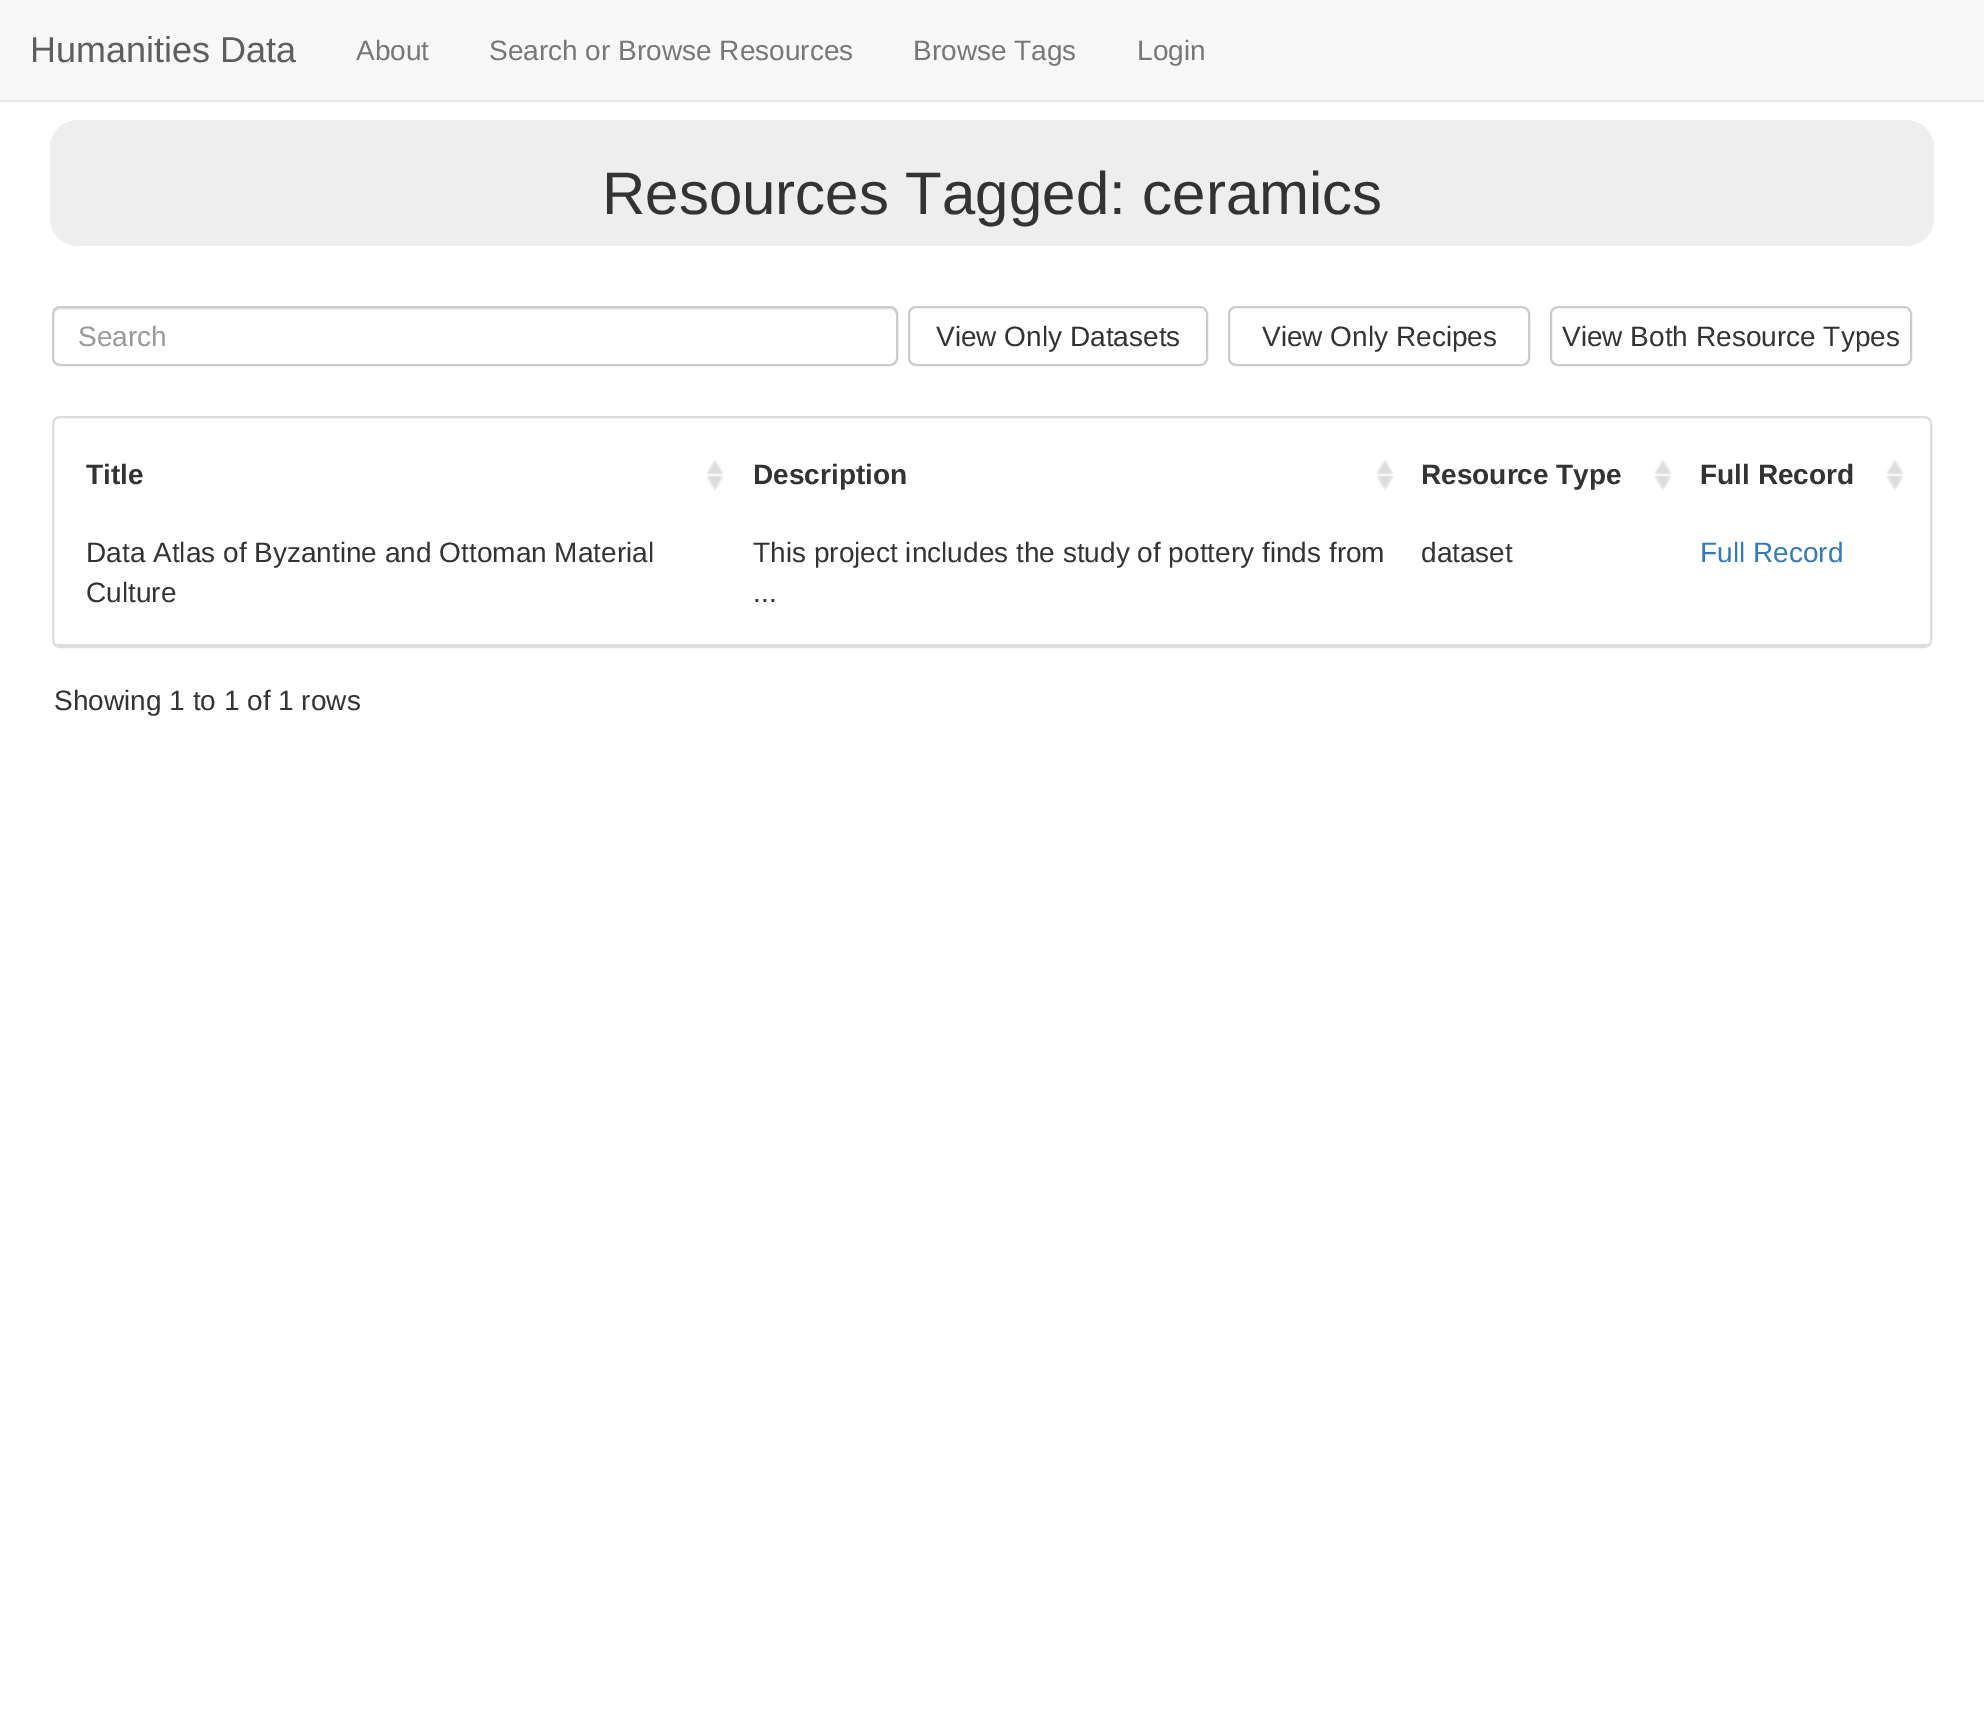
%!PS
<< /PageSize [1984 1730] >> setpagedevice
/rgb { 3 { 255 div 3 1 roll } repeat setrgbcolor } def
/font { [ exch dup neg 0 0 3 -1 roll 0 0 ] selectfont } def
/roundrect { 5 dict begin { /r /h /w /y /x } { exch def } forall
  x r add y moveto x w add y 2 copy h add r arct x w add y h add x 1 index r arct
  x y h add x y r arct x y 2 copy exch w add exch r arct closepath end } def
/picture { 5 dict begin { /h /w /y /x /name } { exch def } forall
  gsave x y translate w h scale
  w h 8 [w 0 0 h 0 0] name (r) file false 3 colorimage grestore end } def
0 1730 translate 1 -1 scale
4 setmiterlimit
255 255 255 rgb
0 0 1984 1730 rectfill
248 248 248 rgb
0 0 1984 100 rectfill
231 231 231 rgb
0 100 1984 2 rectfill
238 238 238 rgb
50 120 1884 126 28 roundrect fill
236 236 236 rgb
60 310 moveto 890 310 lineto 893 310 896 313 896 316 curveto 896 312 895 308 890 308 curveto 60 308 lineto 55 308 54 312 54 316 curveto 54 313 57 310 60 310 curveto closepath fill
204 204 204 rgb
2 setlinewidth
53 307 844 58 7 roundrect stroke
909 307 298 58 7 roundrect stroke
1229 307 300 58 7 roundrect stroke
1551 307 360 58 7 roundrect stroke
221 221 221 rgb
53 417 1878 230 7 roundrect stroke
56 644 1874 2 rectfill
(img/1.rgb) 706 459 18 32 picture
(img/1.rgb) 1376 459 18 32 picture
(img/1.rgb) 1654 459 18 32 picture
(img/1.rgb) 1886 459 18 32 picture
/LiberationSans-Regular 36 font
94 94 94 rgb
30 62 moveto (Humanities Data) show
/LiberationSans-Regular 28 font
119 119 119 rgb
[
  [(About) 356 60]
  [(Search or Browse Resources) 489 60]
  [(Browse Tags) 913 60]
  [(Login) 1137 60]
] { aload pop moveto show } forall
/LiberationSans-Regular 60 font
51 51 51 rgb
602 214 moveto (Resources Tagged: ceramics) show
/LiberationSans-Regular 28 font
153 153 153 rgb
78 346 moveto (Search) show
51 51 51 rgb
[
  [(View Only Datasets) 936 346]
  [(View Only Recipes) 1262 346]
  [(View Both Resource Types) 1562 346]
] { aload pop moveto show } forall
/LiberationSans-Bold 28 font
[
  [(Title) 86 484]
  [(Description) 753 484]
  [(Resource Type) 1421 484]
  [(Full Record) 1700 484]
] { aload pop moveto show } forall
/LiberationSans-Regular 28 font
[
  [(Data Atlas of Byzantine and Ottoman Material) 86 562]
  [(Culture) 86 602]
  [(This project includes the study of pottery finds from) 753 562]
  [(...) 753 602]
  [(dataset) 1421 562]
] { aload pop moveto show } forall
51 122 183 rgb
1700 562 moveto (Full Record) show
51 51 51 rgb
54 710 moveto (Showing 1 to 1 of 1 rows) show
showpage
